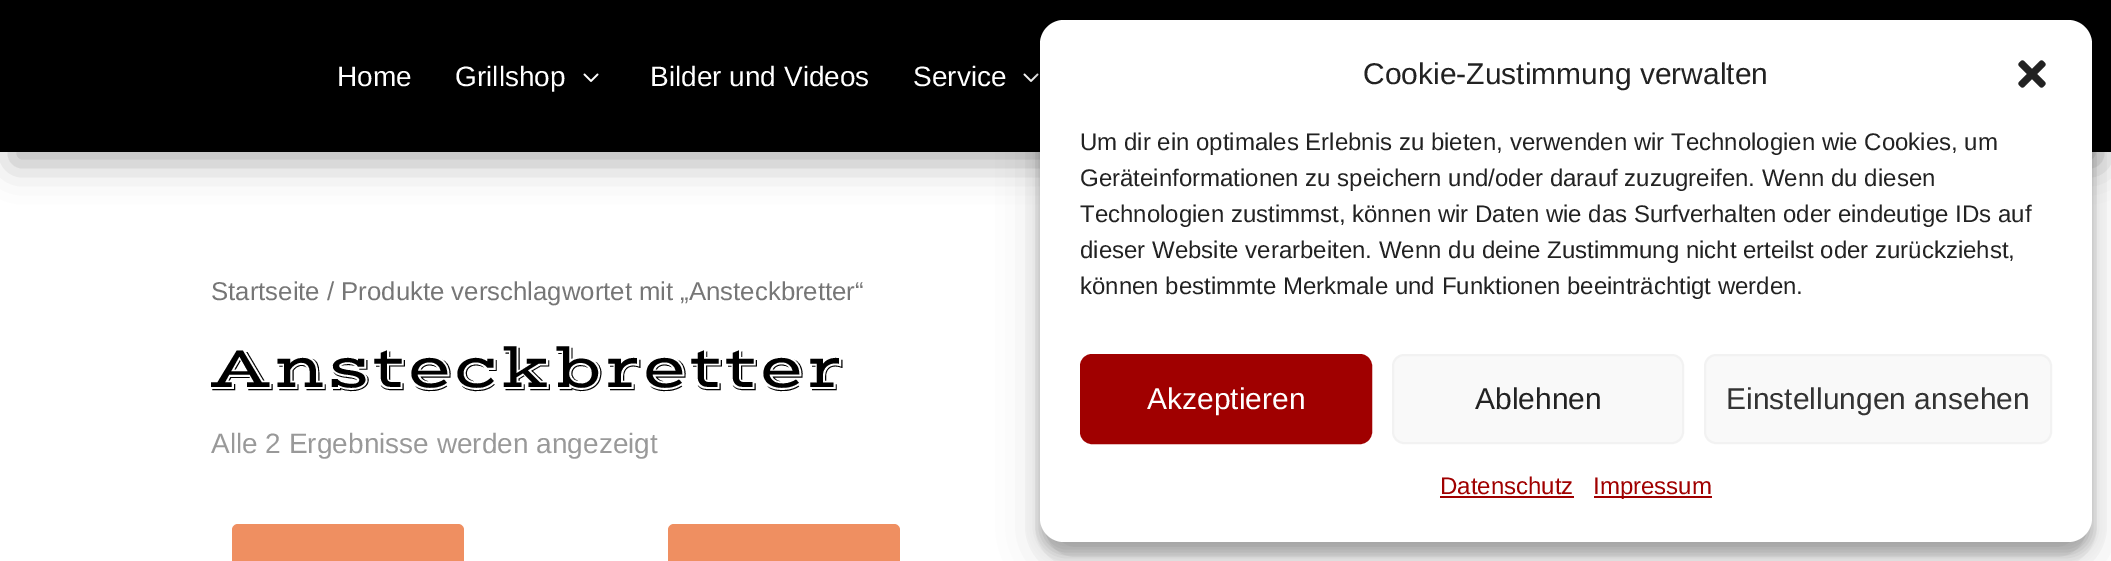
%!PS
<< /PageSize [2111 561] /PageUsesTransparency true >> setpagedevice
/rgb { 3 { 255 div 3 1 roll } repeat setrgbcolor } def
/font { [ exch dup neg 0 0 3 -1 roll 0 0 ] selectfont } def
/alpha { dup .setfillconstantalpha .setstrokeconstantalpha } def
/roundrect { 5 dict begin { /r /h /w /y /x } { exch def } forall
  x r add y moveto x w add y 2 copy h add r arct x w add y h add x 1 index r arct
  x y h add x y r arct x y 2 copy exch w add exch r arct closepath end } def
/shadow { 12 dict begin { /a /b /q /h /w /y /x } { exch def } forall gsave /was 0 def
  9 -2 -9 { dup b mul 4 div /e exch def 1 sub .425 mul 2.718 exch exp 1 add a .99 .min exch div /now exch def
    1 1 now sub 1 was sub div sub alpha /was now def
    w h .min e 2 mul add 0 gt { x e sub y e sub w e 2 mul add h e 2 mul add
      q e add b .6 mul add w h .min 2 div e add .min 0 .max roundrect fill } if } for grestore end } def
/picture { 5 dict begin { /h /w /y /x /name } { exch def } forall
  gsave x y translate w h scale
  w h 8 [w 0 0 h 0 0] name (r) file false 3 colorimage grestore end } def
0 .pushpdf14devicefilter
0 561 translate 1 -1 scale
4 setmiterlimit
255 255 255 rgb
0 0 2111 561 rectfill
0 0 0 rgb
12 36 2088 128 0 18 0.3 shadow
0 0 2111 152 rectfill
(img/1.rgb) 583 73 16 9 picture
(img/1.rgb) 1023 73 16 9 picture
239 143 97 rgb
232 524 232 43 6 roundrect fill
668 524 232 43 6 roundrect fill
0 0 0 rgb
1040 32 1052 522 24 6 0.23 shadow
1040 40 1052 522 24 20 0.19 shadow
255 255 255 rgb
1040 20 1052 522 24 roundrect fill
(img/2.rgb) 2018 60 28 28 picture
160 0 0 rgb
1081 355 290 88 11 roundrect gsave fill grestore
2 setlinewidth
stroke
249 249 249 rgb
1393 355 290 88 11 roundrect gsave fill grestore
242 242 242 rgb
stroke
249 249 249 rgb
1705 355 346 88 11 roundrect gsave fill grestore
242 242 242 rgb
stroke
160 0 0 rgb
1440 496 134 2 rectfill
1594 496 118 2 rectfill
/LiberationSans-Regular 28 font
255 255 255 rgb
[
  [(Home) 337 86]
  [(Grillshop) 455 86]
  [(Bilder und Videos) 650 86]
  [(Service) 913 86]
] { aload pop moveto show } forall
/LiberationSans-Regular 25.75 font
118 118 118 rgb
211 300 moveto (Startseite / Produkte verschlagwortet mit „Ansteckbretter“) show
/VastShadow-Regular 60 font
0 0 0 rgb
211 387 moveto (Ansteckbretter) show
/LiberationSans-Regular 28 font
153 153 153 rgb
211 453 moveto (Alle 2 Ergebnisse werden angezeigt) show
/LiberationSans-Regular 30 font
34 34 34 rgb
1363 84 moveto (Cookie-Zustimmung verwalten) show
/LiberationSans-Regular 24 font
[
  [(Um dir ein optimales Erlebnis zu bieten, verwenden wir Technologien wie Cookies, um) 1080 150]
  [(Geräteinformationen zu speichern und/oder darauf zuzugreifen. Wenn du diesen) 1080 186]
  [(Technologien zustimmst, können wir Daten wie das Surfverhalten oder eindeutige IDs auf) 1080 222]
  [(dieser Website verarbeiten. Wenn du deine Zustimmung nicht erteilst oder zurückziehst,) 1080 258]
  [(können bestimmte Merkmale und Funktionen beeinträchtigt werden.) 1080 294]
] { aload pop moveto show } forall
/LiberationSans-Regular 30 font
255 255 255 rgb
1147 409 moveto (Akzeptieren) show
34 34 34 rgb
1475 409 moveto (Ablehnen) show
51 51 51 rgb
1726 409 moveto (Einstellungen ansehen) show
/LiberationSans-Regular 24 font
160 0 0 rgb
1440 494 moveto (Datenschutz) show
1593 494 moveto (Impressum) show
.poppdf14devicefilter showpage
